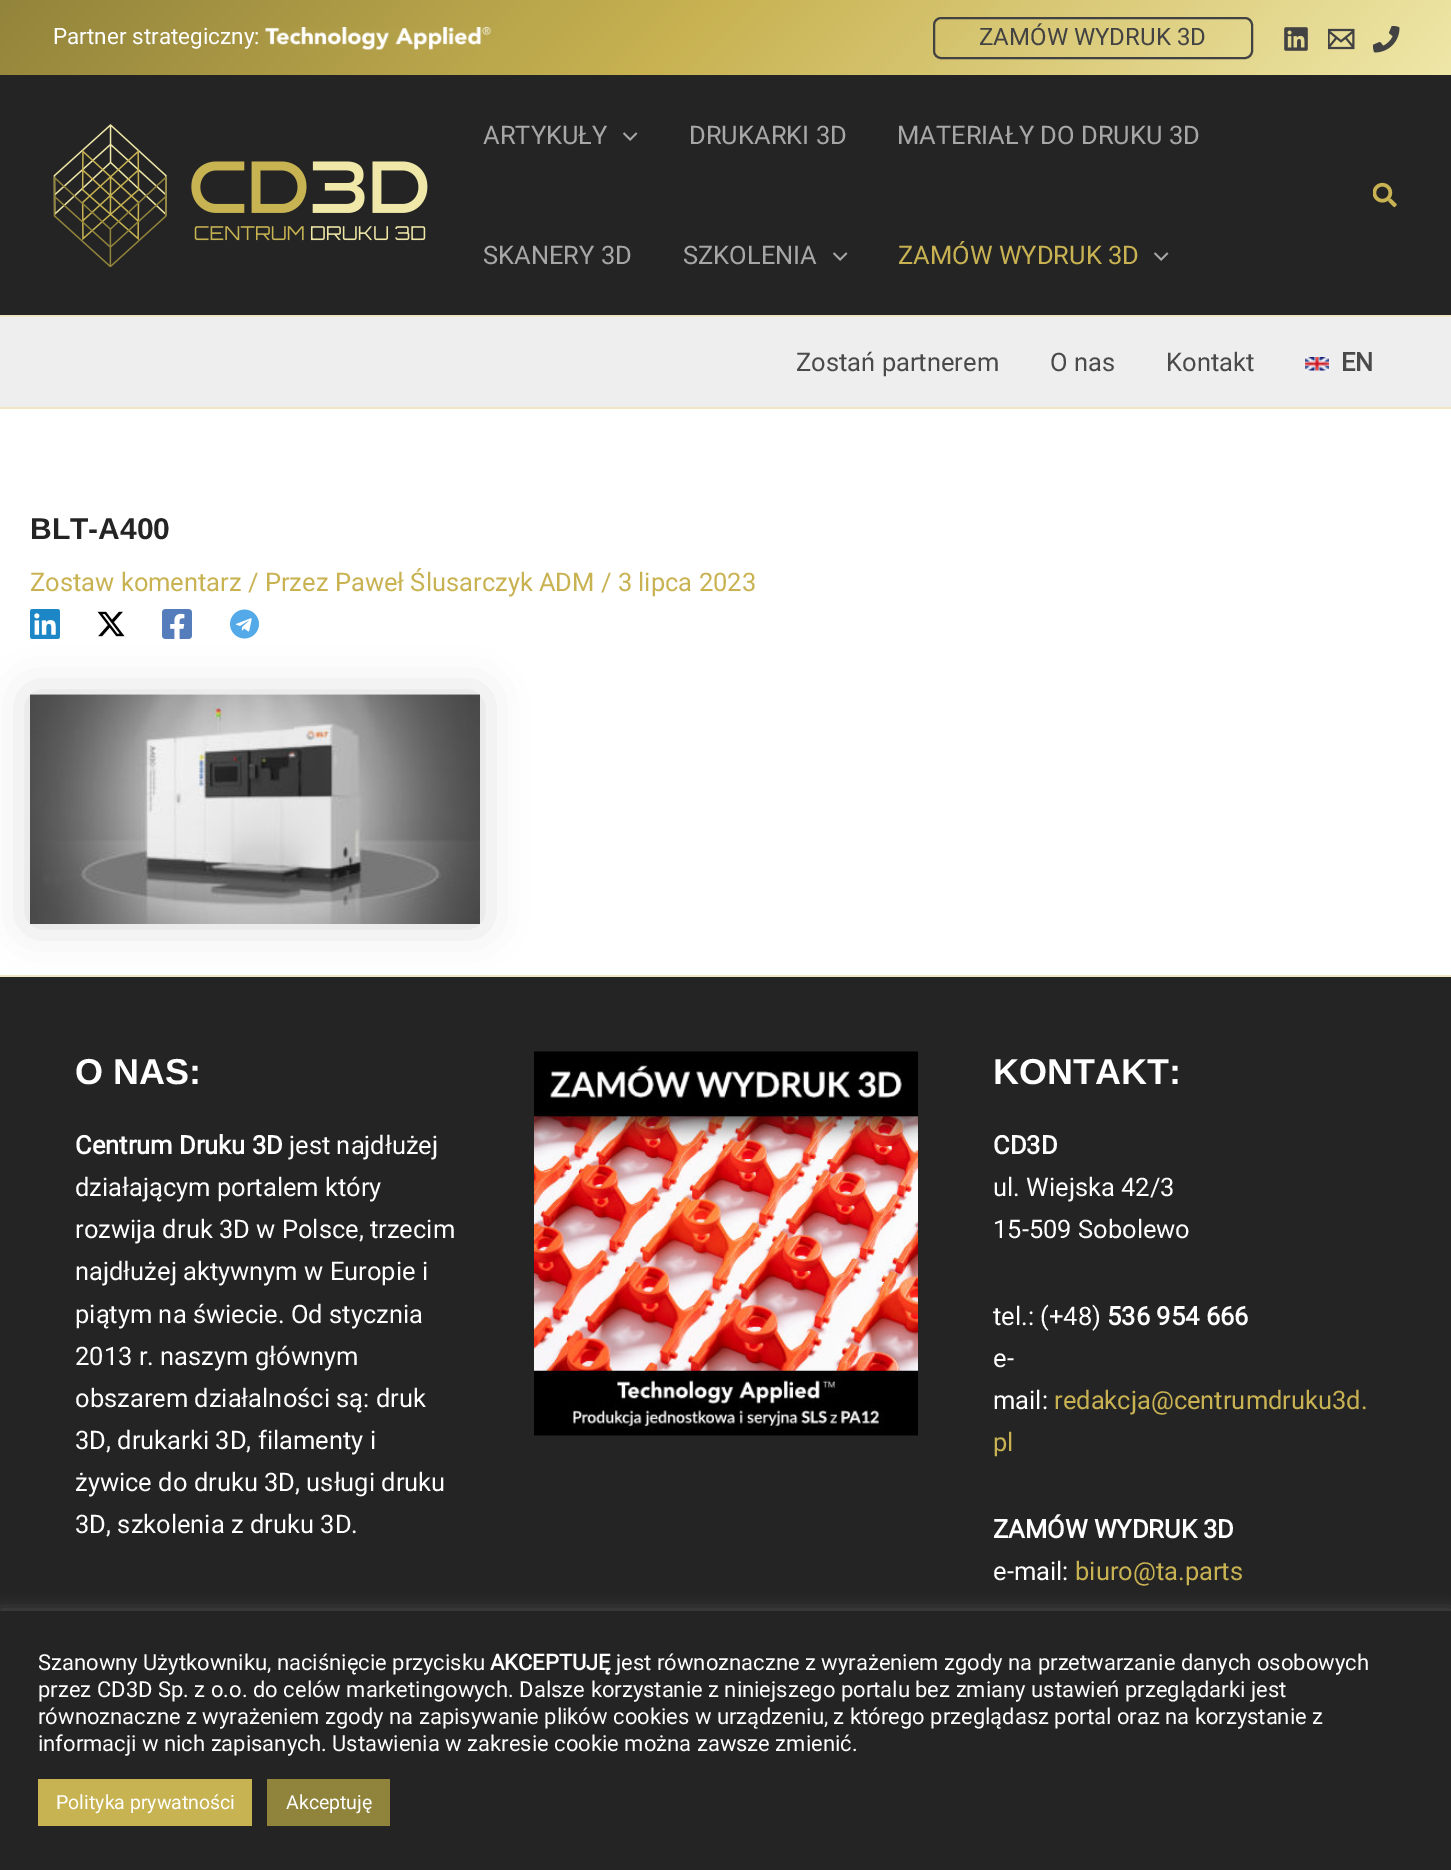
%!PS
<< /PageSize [1451 1870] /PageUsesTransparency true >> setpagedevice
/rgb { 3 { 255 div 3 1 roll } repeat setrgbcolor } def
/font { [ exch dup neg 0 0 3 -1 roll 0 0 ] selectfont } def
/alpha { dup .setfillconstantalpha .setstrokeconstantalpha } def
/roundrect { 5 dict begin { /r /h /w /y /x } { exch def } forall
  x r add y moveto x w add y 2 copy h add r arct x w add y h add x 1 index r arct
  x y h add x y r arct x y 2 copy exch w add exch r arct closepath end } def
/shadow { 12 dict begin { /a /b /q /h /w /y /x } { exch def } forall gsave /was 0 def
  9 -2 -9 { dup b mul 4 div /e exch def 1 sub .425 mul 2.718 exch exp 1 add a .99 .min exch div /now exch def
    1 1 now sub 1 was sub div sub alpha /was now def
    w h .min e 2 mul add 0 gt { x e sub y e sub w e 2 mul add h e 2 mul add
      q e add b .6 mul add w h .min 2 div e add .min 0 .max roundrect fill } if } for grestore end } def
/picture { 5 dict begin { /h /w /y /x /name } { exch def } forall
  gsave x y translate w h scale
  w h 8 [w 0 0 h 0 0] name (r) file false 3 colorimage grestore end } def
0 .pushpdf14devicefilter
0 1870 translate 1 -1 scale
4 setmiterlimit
255 255 255 rgb
0 0 1451 1870 rectfill
gsave 0 0 moveto 1451 0 lineto 1451 75 lineto 0 75 lineto closepath clip newpath
<< /ShadingType 2 /ColorSpace /DeviceRGB /Coords [344 -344 1108 419] /Extend [true true] /Function << /FunctionType 3 /Domain [0 1] /Functions [<< /FunctionType 2 /Domain [0 1] /C0 [0.573 0.518 0.231] /C1 [0.784 0.698 0.322] /N 1 >> << /FunctionType 2 /Domain [0 1] /C0 [0.784 0.698 0.322] /C1 [0.937 0.906 0.659] /N 1 >>] /Bounds [0.47] /Encode [0 1 0 1] >> >> shfill grestore
(img/1.rgb) 265 27 226 23 picture
66 66 66 rgb
2 setlinewidth
934 18 318 40 7 roundrect stroke
(img/2.rgb) 1284 27 24 24 picture
(img/3.rgb) 1328 28 27 22 picture
(img/4.rgb) 1373 26 27 27 picture
36 36 36 rgb
0 75 1451 240 rectfill
240 230 197 rgb
0 315 1451 2 rectfill
(img/5.rgb) 53 124 375 143 picture
(img/6.rgb) 623 132 15 9 picture
(img/6.rgb) 833 252 15 9 picture
(img/6.rgb) 1154 252 15 9 picture
(img/7.rgb) 1373 182 24 26 picture
238 238 238 rgb
0 317 1451 90 rectfill
240 230 197 rgb
0 407 1451 2 rectfill
(img/8.rgb) 1305 357 24 14 picture
0 0 0 rgb
30 695 450 229 0 22.5 0.15 shadow
(img/9.rgb) 30 609 30 30 picture
(img/10.rgb) 97 611 28 26 picture
(img/11.rgb) 162 609 30 30 picture
(img/12.rgb) 230 609 29 30 picture
(img/13.rgb) 30 694 450 230 picture
36 36 36 rgb
0 977 1451 634 rectfill
240 230 197 rgb
0 975 1451 2 rectfill
(img/14.rgb) 534 1051 384 385 picture
172 171 171 rgb
0 1610 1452 259 0 7.5 0.3 shadow
[
  [0 1611 1451 259 36 36 36]
  [38 1779 214 47 200 179 82]
  [267 1779 123 47 144 132 61]
] { aload pop rgb rectfill } forall
/Roboto-Regular 22.5 font
255 255 255 rgb
53 44 moveto (Partner strategiczny:) show
/Roboto-Regular 24 font
66 66 66 rgb
979 45 moveto (ZAMÓW WYDRUK 3D) show
/Roboto-Regular 25.5 font
167 167 167 rgb
[
  [(ARTYKUŁY) 483 144]
  [(DRUKARKI 3D) 689 144]
  [(MATERIAŁY DO DRUKU 3D) 897 144]
  [(SKANERY 3D) 483 264]
  [(SZKOLENIA) 683 264]
] { aload pop moveto show } forall
200 178 82 rgb
898 264 moveto (ZAMÓW WYDRUK 3D) show
74 74 74 rgb
[
  [(Zostań partnerem) 796 371]
  [(O nas) 1050 371]
  [(Kontakt) 1166 371]
] { aload pop moveto show } forall
/Roboto-Bold 25.5 font
1341 371 moveto (EN) show
/LiberationSans-Bold 30 font
36 36 36 rgb
30 539 moveto (BLT-A400) show
/Roboto-Regular 25.5 font
200 178 82 rgb
30 591 moveto (Zostaw komentarz / Przez Paweł Ślusarczyk ADM / 3 lipca 2023) show
/LiberationSans-Bold 36 font
255 255 255 rgb
75 1084 moveto (O NAS:) show
/Roboto-Bold 25.5 font
75 1154 moveto (Centrum Druku 3D) show
/Roboto-Regular 25.5 font
[
  [(jest najdłużej) 289 1154]
  [(działającym portalem który) 75 1196]
  [(rozwija druk 3D w Polsce, trzecim) 75 1238]
  [(najdłużej aktywnym w Europie i) 75 1280]
  [(piątym na świecie. Od stycznia) 75 1323]
  [(2013 r. naszym głównym) 75 1365]
  [(obszarem działalności są: druk) 75 1407]
  [(3D, drukarki 3D, filamenty i) 75 1449]
  [(żywice do druku 3D, usługi druku) 75 1491]
  [(3D, szkolenia z druku 3D.) 75 1533]
] { aload pop moveto show } forall
/LiberationSans-Bold 36 font
993 1084 moveto (KONTAKT:) show
/Roboto-Bold 25.5 font
993 1154 moveto (CD3D) show
/Roboto-Regular 25.5 font
[
  [(ul. Wiejska 42/3) 993 1196]
  [(15-509 Sobolewo) 993 1238]
  [(tel.: \(+48\)) 993 1325]
] { aload pop moveto show } forall
/Roboto-Bold 25.5 font
1107 1325 moveto (536 954 666) show
/Roboto-Regular 25.5 font
993 1367 moveto (e-) show
993 1409 moveto (mail:) show
200 178 82 rgb
1054 1409 moveto (redakcja@centrumdruku3d.) show
993 1451 moveto (pl) show
/Roboto-Bold 25.5 font
255 255 255 rgb
993 1538 moveto (ZAMÓW WYDRUK 3D) show
/Roboto-Regular 25.5 font
993 1580 moveto (e-mail:) show
200 178 82 rgb
1075 1580 moveto (biuro@ta.parts) show
/Roboto-Regular 22 font
255 255 255 rgb
38 1670 moveto (Szanowny Użytkowniku, naciśnięcie przycisku) show
/Roboto-Bold 22 font
490 1670 moveto (AKCEPTUJĘ) show
/Roboto-Regular 22 font
[
  [(jest równoznaczne z wyrażeniem zgody na przetwarzanie danych osobowych) 616 1670]
  [(przez CD3D Sp. z o.o. do celów marketingowych. Dalsze korzystanie z niniejszego portalu bez zmiany ustawień przeglądarki jest) 38 1697]
  [(równoznaczne z wyrażeniem zgody na zapisywanie plików cookies w urządzeniu, z którego przeglądasz portal oraz na korzystanie z) 38 1724]
  [(informacji w nich zapisanych. Ustawienia w zakresie cookie można zawsze zmienić.) 38 1751]
] { aload pop moveto show } forall
/Roboto-Regular 19.5 font
56 1809 moveto (Polityka prywatności) show
286 1809 moveto (Akceptuję) show
.poppdf14devicefilter showpage
